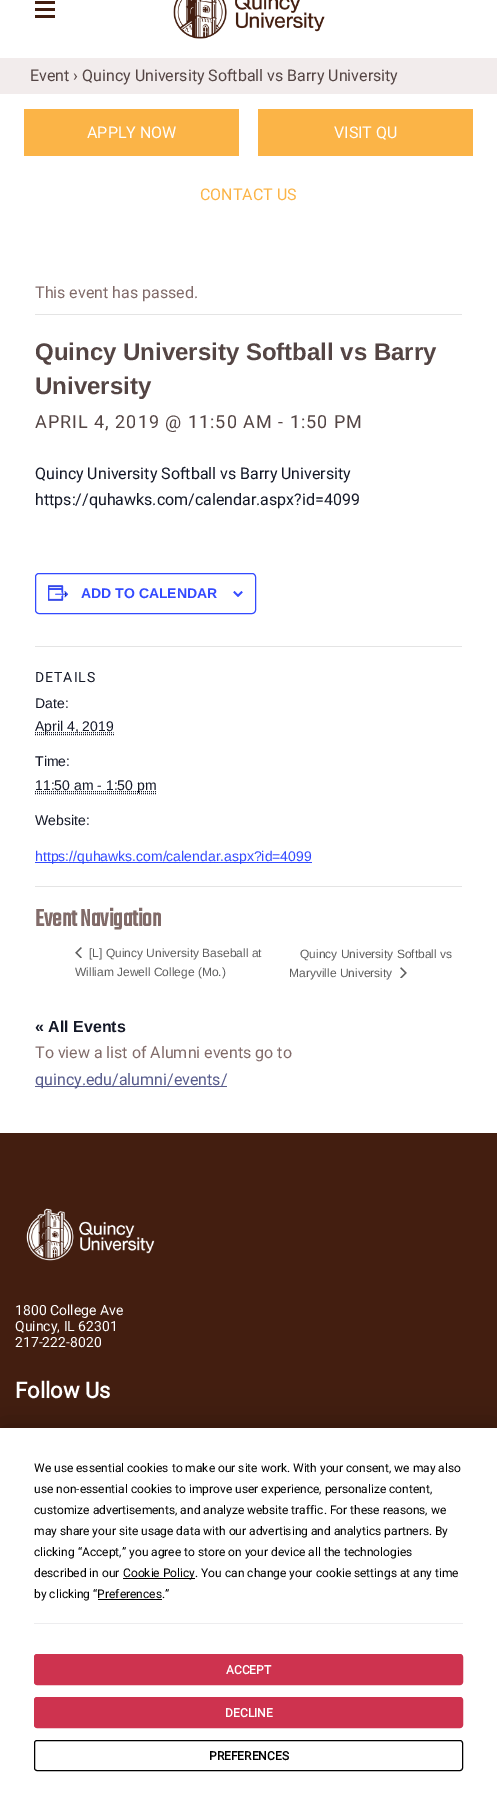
%!PS
<< /PageSize [497 1801] /PageUsesTransparency true >> setpagedevice
/rgb { 3 { 255 div 3 1 roll } repeat setrgbcolor } def
/font { [ exch dup neg 0 0 3 -1 roll 0 0 ] selectfont } def
/alpha { dup .setfillconstantalpha .setstrokeconstantalpha } def
/roundrect { 5 dict begin { /r /h /w /y /x } { exch def } forall
  x r add y moveto x w add y 2 copy h add r arct x w add y h add x 1 index r arct
  x y h add x y r arct x y 2 copy exch w add exch r arct closepath end } def
/shadow { 12 dict begin { /a /b /q /h /w /y /x } { exch def } forall gsave /was 0 def
  9 -2 -9 { dup b mul 4 div /e exch def 1 sub .425 mul 2.718 exch exp 1 add a .99 .min exch div /now exch def
    1 1 now sub 1 was sub div sub alpha /was now def
    w h .min e 2 mul add 0 gt { x e sub y e sub w e 2 mul add h e 2 mul add
      q e add b .6 mul add w h .min 2 div e add .min 0 .max roundrect fill } if } for grestore end } def
/picture { 5 dict begin { /h /w /y /x /name } { exch def } forall
  gsave x y translate w h scale
  w h 8 [w 0 0 h 0 0] name (r) file false 3 colorimage grestore end } def
0 .pushpdf14devicefilter
0 1801 translate 1 -1 scale
4 setmiterlimit
255 255 255 rgb
0 0 497 1801 rectfill
[
  [35 1 20 3 67 30 16]
  [35 8 20 3 67 30 16]
  [35 15 20 3 67 30 16]
] { aload pop rgb rectfill } forall
(img/1.rgb) 173 0 152 39 picture
[
  [0 58 497 36 242 236 236]
  [24 109 215 47 251 180 71]
  [258 109 215 47 251 180 71]
  [35 314 427 1 228 228 228]
] { aload pop rgb rectfill } forall
51 74 255 rgb
35.5 573.5 220 40 3.5 roundrect stroke
(img/2.rgb) 48 585 21 16 picture
(img/3.rgb) 233 591 10 6 picture
228 228 228 rgb
35 646 427 1 rectfill
20 24 39 rgb
[1 1] 0 setdash
35 734.5 moveto 114 734.5 lineto stroke
35 732.5 moveto 113.5 732.5 lineto stroke
35 793.5 moveto 156 793.5 lineto stroke
35 791.5 moveto 156.5 791.5 lineto stroke
51 74 255 rgb
35 862 277 1 rectfill
228 228 228 rgb
35 886 427 1 rectfill
(img/4.rgb) 75 947 7 11 picture
(img/5.rgb) 400 967 7 11 picture
88 92 140 rgb
35 1086 192 1 rectfill
67 30 16 rgb
0 1133 497 295 rectfill
(img/6.rgb) 26 1208 129 53 picture
0 0 0 rgb
0 1428 497 373 0 17.5 0.25 shadow
[
  [0 1428 497 373 255 255 255]
  [123 1578 72 1 0 0 0]
  [98 1599 64 1 0 0 0]
  [34 1623 429 1 237 237 239]
] { aload pop rgb rectfill } forall
206 51 79 rgb
34.5 1654.5 428 30 2.5 roundrect gsave fill grestore
[] 0 setdash
stroke
34.5 1697.5 428 30 2.5 roundrect gsave fill grestore
stroke
0 0 0 rgb
34.5 1740.5 428 30 2.5 roundrect stroke
/Roboto-Regular 16 font
84 69 68 rgb
30 81 moveto (Event › Quincy University Softball vs Barry University) show
255 255 255 rgb
87 138 moveto (APPLY NOW) show
334 138 moveto (VISIT QU) show
251 180 71 rgb
200 200 moveto (CONTACT US) show
129 107 105 rgb
35 298 moveto (This event has passed.) show
/LiberationSans-Bold 24 font
84 69 68 rgb
35 360 moveto (Quincy University Softball vs Barry) show
35 394 moveto (University) show
/Roboto-Regular 18 font
35 428 moveto 1 0 (APRIL 4, 2019 @ 11:50 AM - 1:50 PM) ashow
/Roboto-Regular 16 font
20 24 39 rgb
35 479 moveto (Quincy University Softball vs Barry University) show
35 505 moveto (https://quhawks.com/calendar.aspx?id=4099) show
/LiberationSans-Bold 14 font
51 74 255 rgb
81 598 moveto (ADD TO CALENDAR) show
/Roboto-Regular 14 font
20 24 39 rgb
35 682 moveto 1 0 (DETAILS) ashow
/LiberationSans-Regular 14 font
[
  [(Date:) 35 708]
  [(April 4, 2019) 35 731]
  [(Time:) 35 766]
  [(11:50 am - 1:50 pm) 35 790]
  [(Website:) 35 825]
] { aload pop moveto show } forall
51 74 255 rgb
35 861 moveto (https://quhawks.com/calendar.aspx?id=4099) show
/Teko-Bold 26 font
129 107 105 rgb
35 926 moveto (Event Navigation) show
/LiberationSans-Regular 12 font
93 93 93 rgb
[
  [([L] Quincy University Baseball at) 89 957]
  [(William Jewell College \(Mo.\)) 75 976]
  [(Quincy University Softball vs) 300 958]
  [(Maryville University) 289 977]
] { aload pop moveto show } forall
/LiberationSans-Bold 16 font
20 24 39 rgb
35 1032 moveto (« All Events) show
/Roboto-Regular 16 font
129 107 105 rgb
35 1058 moveto (To view a list of Alumni events go to) show
88 92 140 rgb
35 1085 moveto (quincy.edu/alumni/events/) show
/Roboto-Regular 14 font
255 255 255 rgb
[
  [(1800 College Ave) 15 1315]
  [(Quincy, IL 62301) 15 1331]
  [(217-222-8020) 15 1347]
] { aload pop moveto show } forall
/Roboto-Bold 22 font
15 1398 moveto (Follow Us) show
/Roboto-Regular 12 font
0 0 0 rgb
[
  [(We use essential cookies to make our site work. With your consent, we may also) 34 1472]
  [(use non-essential cookies to improve user experience, personalize content,) 34 1493]
  [(customize advertisements, and analyze website traffic. For these reasons, we) 34 1514]
  [(may share your site usage data with our advertising and analytics partners. By) 34 1535]
  [(clicking “Accept,” you agree to store on your device all the technologies) 34 1556]
  [(described in our) 34 1577]
  [(Cookie Policy. You can change your cookie settings at any time) 123 1577]
  [(by clicking “Preferences.”) 34 1598]
] { aload pop moveto show } forall
/Roboto-Bold 12 font
255 255 255 rgb
226 1674 moveto (ACCEPT) show
225 1717 moveto (DECLINE) show
0 0 0 rgb
209 1760 moveto (PREFERENCES) show
.poppdf14devicefilter showpage
